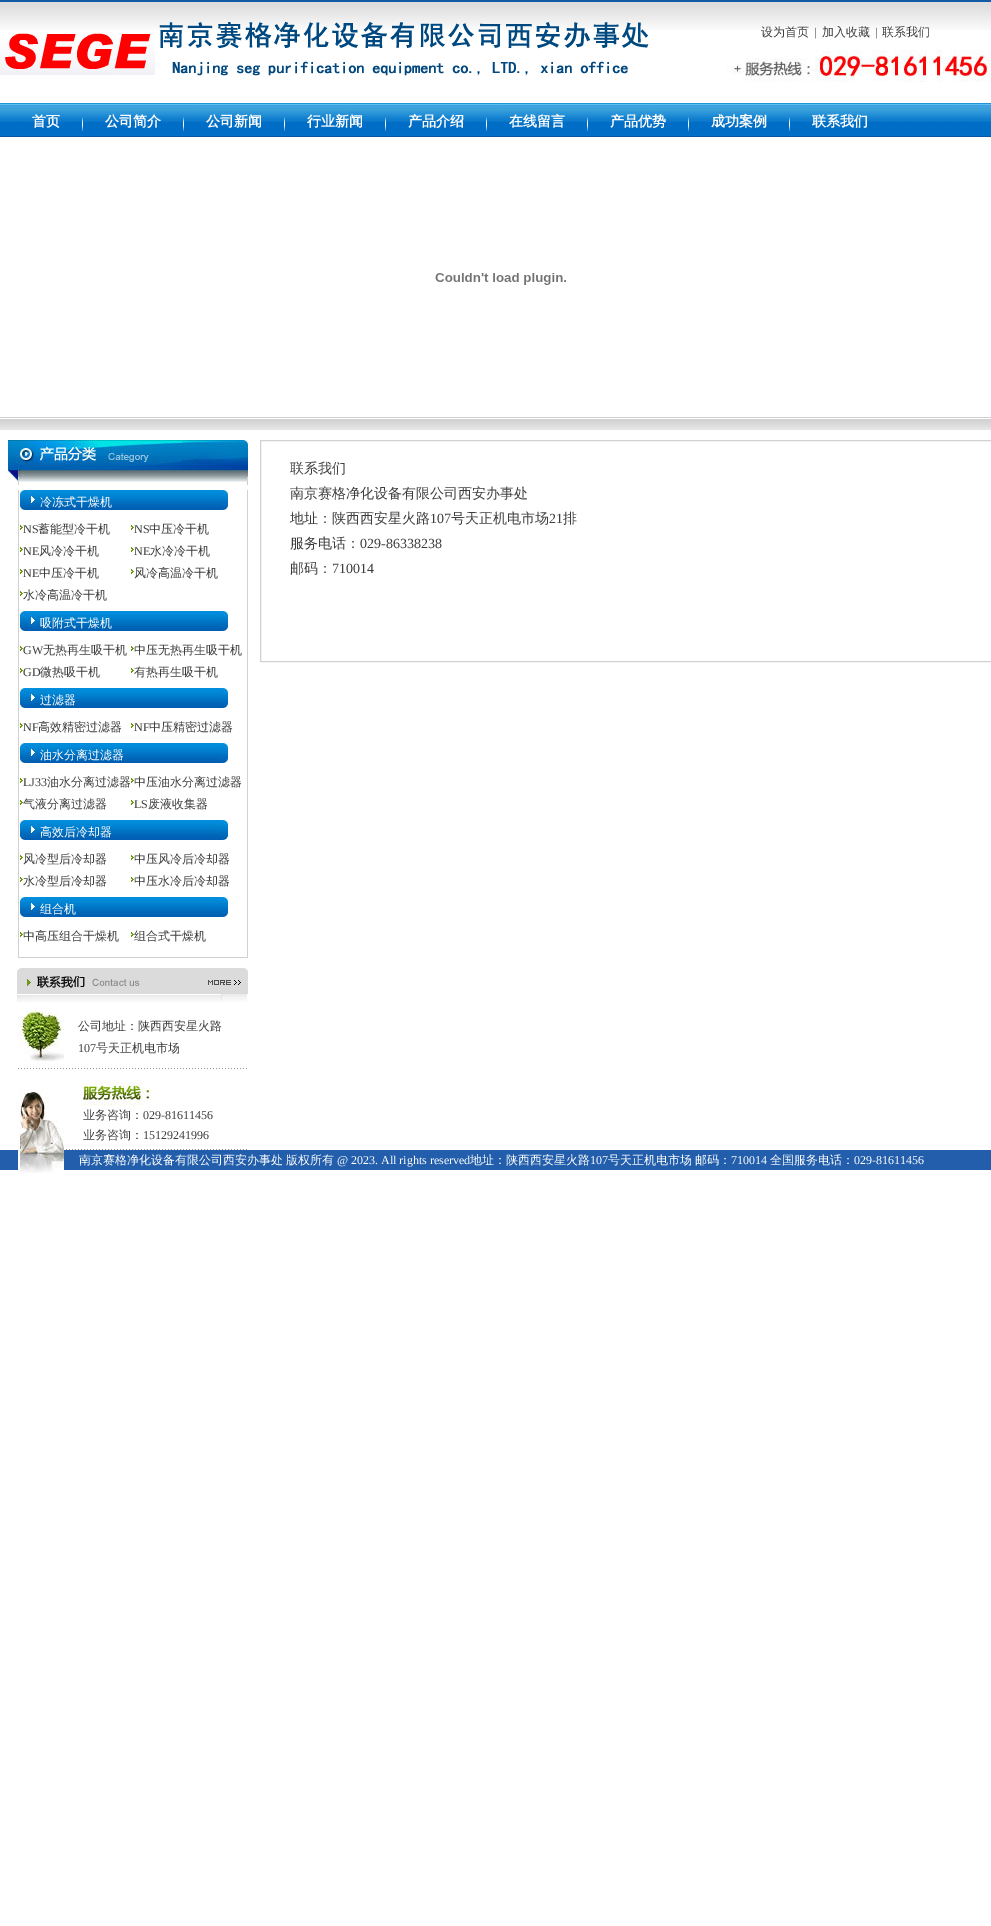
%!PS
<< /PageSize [991 1926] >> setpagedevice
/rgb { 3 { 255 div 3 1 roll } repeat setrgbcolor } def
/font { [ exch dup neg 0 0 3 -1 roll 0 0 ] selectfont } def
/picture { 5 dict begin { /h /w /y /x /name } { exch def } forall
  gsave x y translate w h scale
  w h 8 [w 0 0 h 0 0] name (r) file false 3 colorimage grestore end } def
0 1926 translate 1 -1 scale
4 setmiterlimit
255 255 255 rgb
0 0 991 1926 rectfill
(img/1.rgb) 0 0 991 30 picture
(img/2.rgb) 0 21 649 55 picture
(img/3.rgb) 727 50 264 32 picture
(img/4.rgb) 0 103 991 34 picture
(img/5.rgb) 82 117 1 15 picture
(img/5.rgb) 183 117 1 15 picture
(img/5.rgb) 284 117 1 15 picture
(img/5.rgb) 385 117 1 15 picture
(img/5.rgb) 486 117 1 15 picture
(img/5.rgb) 587 117 1 15 picture
(img/5.rgb) 688 117 1 15 picture
(img/5.rgb) 789 117 1 15 picture
(img/6.rgb) 435 273 131 12 picture
(img/7.rgb) 0 417 991 13 picture
(img/8.rgb) 8 440 240 45 picture
[
  [247 490 1 468 209 209 209]
  [18 957 230 1 209 209 209]
  [18 490 1 468 209 209 209]
] { aload pop rgb rectfill } forall
(img/9.rgb) 20 490 208 20 picture
(img/10.rgb) 20 525 3 5 picture
(img/10.rgb) 131 525 3 5 picture
(img/10.rgb) 20 547 3 5 picture
(img/10.rgb) 131 547 3 5 picture
(img/10.rgb) 20 569 3 5 picture
(img/10.rgb) 131 569 3 5 picture
(img/10.rgb) 20 591 3 5 picture
(img/9.rgb) 20 611 208 20 picture
(img/10.rgb) 20 646 3 5 picture
(img/10.rgb) 131 646 3 5 picture
(img/10.rgb) 20 668 3 5 picture
(img/10.rgb) 131 668 3 5 picture
(img/9.rgb) 20 688 208 20 picture
(img/10.rgb) 20 723 3 5 picture
(img/10.rgb) 131 723 3 5 picture
(img/9.rgb) 20 743 208 20 picture
(img/10.rgb) 20 778 3 5 picture
(img/10.rgb) 131 778 3 5 picture
(img/10.rgb) 20 800 3 5 picture
(img/10.rgb) 131 800 3 5 picture
(img/9.rgb) 20 820 208 20 picture
(img/10.rgb) 20 855 3 5 picture
(img/10.rgb) 131 855 3 5 picture
(img/10.rgb) 20 877 3 5 picture
(img/10.rgb) 131 877 3 5 picture
(img/9.rgb) 20 897 208 20 picture
(img/10.rgb) 20 932 3 5 picture
(img/10.rgb) 131 932 3 5 picture
(img/11.rgb) 17 968 231 34 picture
(img/12.rgb) 18 1068 229 1 picture
(img/13.rgb) 18 1007 46 56 picture
(img/14.rgb) 64 1149 183 1 picture
34 94 171 rgb
0 1150 991 20 rectfill
(img/15.rgb) 18 1089 46 85 picture
(img/16.rgb) 83 1082 68 23 picture
209 209 209 rgb
260.5 440.5 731 221 rectstroke
/WenQuanYiZenHei-Medium 12 font
61 61 61 rgb
761 36 moveto (设为首页) show
/LiberationSerif-Regular 12 font
814 36 moveto (|) show
/WenQuanYiZenHei-Medium 12 font
822 36 moveto (加入收藏) show
/LiberationSerif-Regular 12 font
875 36 moveto (|) show
/WenQuanYiZenHei-Medium 12 font
882 36 moveto (联系我们) show
/WenQuanYiZenHei-Bold 14 font
255 255 255 rgb
[
  [(首页) 32 126]
  [(公司简介) 105 126]
  [(公司新闻) 206 126]
  [(行业新闻) 307 126]
  [(产品介绍) 408 126]
  [(在线留言) 509 126]
  [(产品优势) 610 126]
  [(成功案例) 711 126]
  [(联系我们) 812 126]
] { aload pop moveto show } forall
/WenQuanYiZenHei-Medium 12 font
40 506 moveto (冷冻式干燥机) show
/LiberationSerif-Regular 12 font
61 61 61 rgb
23 533 moveto (NS) show
/WenQuanYiZenHei-Medium 12 font
38 533 moveto (蓄能型冷干机) show
/LiberationSerif-Regular 12 font
134 533 moveto (NS) show
/WenQuanYiZenHei-Medium 12 font
149 533 moveto (中压冷干机) show
/LiberationSerif-Regular 12 font
23 555 moveto (NE) show
/WenQuanYiZenHei-Medium 12 font
39 555 moveto (风冷冷干机) show
/LiberationSerif-Regular 12 font
134 555 moveto (NE) show
/WenQuanYiZenHei-Medium 12 font
150 555 moveto (水冷冷干机) show
/LiberationSerif-Regular 12 font
23 577 moveto (NE) show
/WenQuanYiZenHei-Medium 12 font
[
  [(中压冷干机) 39 577]
  [(风冷高温冷干机) 134 577]
  [(水冷高温冷干机) 23 599]
] { aload pop moveto show } forall
255 255 255 rgb
40 627 moveto (吸附式干燥机) show
/LiberationSerif-Regular 12 font
61 61 61 rgb
23 654 moveto (GW) show
/WenQuanYiZenHei-Medium 12 font
43 654 moveto (无热再生吸干机) show
134 654 moveto (中压无热再生吸干机) show
/LiberationSerif-Regular 12 font
23 676 moveto (GD) show
/WenQuanYiZenHei-Medium 12 font
40 676 moveto (微热吸干机) show
134 676 moveto (有热再生吸干机) show
255 255 255 rgb
40 704 moveto (过滤器) show
/LiberationSerif-Regular 12 font
61 61 61 rgb
23 731 moveto (NF) show
/WenQuanYiZenHei-Medium 12 font
38 731 moveto (高效精密过滤器) show
/LiberationSerif-Regular 12 font
134 731 moveto (NF) show
/WenQuanYiZenHei-Medium 12 font
149 731 moveto (中压精密过滤器) show
255 255 255 rgb
40 759 moveto (油水分离过滤器) show
/LiberationSerif-Regular 12 font
61 61 61 rgb
23 786 moveto (LJ33) show
/WenQuanYiZenHei-Medium 12 font
[
  [(油水分离过滤器) 47 786]
  [(中压油水分离过滤器) 134 786]
  [(气液分离过滤器) 23 808]
] { aload pop moveto show } forall
/LiberationSerif-Regular 12 font
134 808 moveto (LS) show
/WenQuanYiZenHei-Medium 12 font
148 808 moveto (废液收集器) show
255 255 255 rgb
40 836 moveto (高效后冷却器) show
61 61 61 rgb
[
  [(风冷型后冷却器) 23 863]
  [(中压风冷后冷却器) 134 863]
  [(水冷型后冷却器) 23 885]
  [(中压水冷后冷却器) 134 885]
] { aload pop moveto show } forall
255 255 255 rgb
40 913 moveto (组合机) show
61 61 61 rgb
[
  [(中高压组合干燥机) 23 940]
  [(组合式干燥机) 134 940]
  [(公司地址：陕西西安星火路) 78 1030]
] { aload pop moveto show } forall
/LiberationSerif-Regular 12 font
78 1052 moveto (107) show
/WenQuanYiZenHei-Medium 12 font
96 1052 moveto (号天正机电市场) show
83 1119 moveto (业务咨询：) show
/LiberationSerif-Regular 12 font
143 1119 moveto (029-81611456) show
/WenQuanYiZenHei-Medium 12 font
83 1139 moveto (业务咨询：) show
/LiberationSerif-Regular 12 font
143 1139 moveto (15129241996) show
/WenQuanYiZenHei-Medium 14 font
[
  [(联系我们) 290 473]
  [(南京赛格净化设备有限公司西安办事处) 290 498]
  [(地址：陕西西安星火路) 290 523]
] { aload pop moveto show } forall
/LiberationSerif-Regular 14 font
430 523 moveto (107) show
/WenQuanYiZenHei-Medium 14 font
451 523 moveto (号天正机电市场) show
/LiberationSerif-Regular 14 font
549 523 moveto (21) show
/WenQuanYiZenHei-Medium 14 font
563 523 moveto (排) show
290 548 moveto (服务电话：) show
/LiberationSerif-Regular 14 font
360 548 moveto (029-86338238) show
/WenQuanYiZenHei-Medium 14 font
290 573 moveto (邮码：) show
/LiberationSerif-Regular 14 font
332 573 moveto (710014) show
/WenQuanYiZenHei-Medium 12 font
255 255 255 rgb
79 1164 moveto (南京赛格净化设备有限公司西安办事处) show
286 1164 moveto (版权所有) show
/LiberationSerif-Regular 12 font
337 1164 moveto (@ 2023. All rights reserved) show
/WenQuanYiZenHei-Medium 12 font
470 1164 moveto (地址：陕西西安星火路) show
/LiberationSerif-Regular 12 font
590 1164 moveto (107) show
/WenQuanYiZenHei-Medium 12 font
608 1164 moveto (号天正机电市场) show
695 1164 moveto (邮码：) show
/LiberationSerif-Regular 12 font
731 1164 moveto (710014) show
/WenQuanYiZenHei-Medium 12 font
770 1164 moveto (全国服务电话：) show
/LiberationSerif-Regular 12 font
854 1164 moveto (029-81611456) show
showpage
